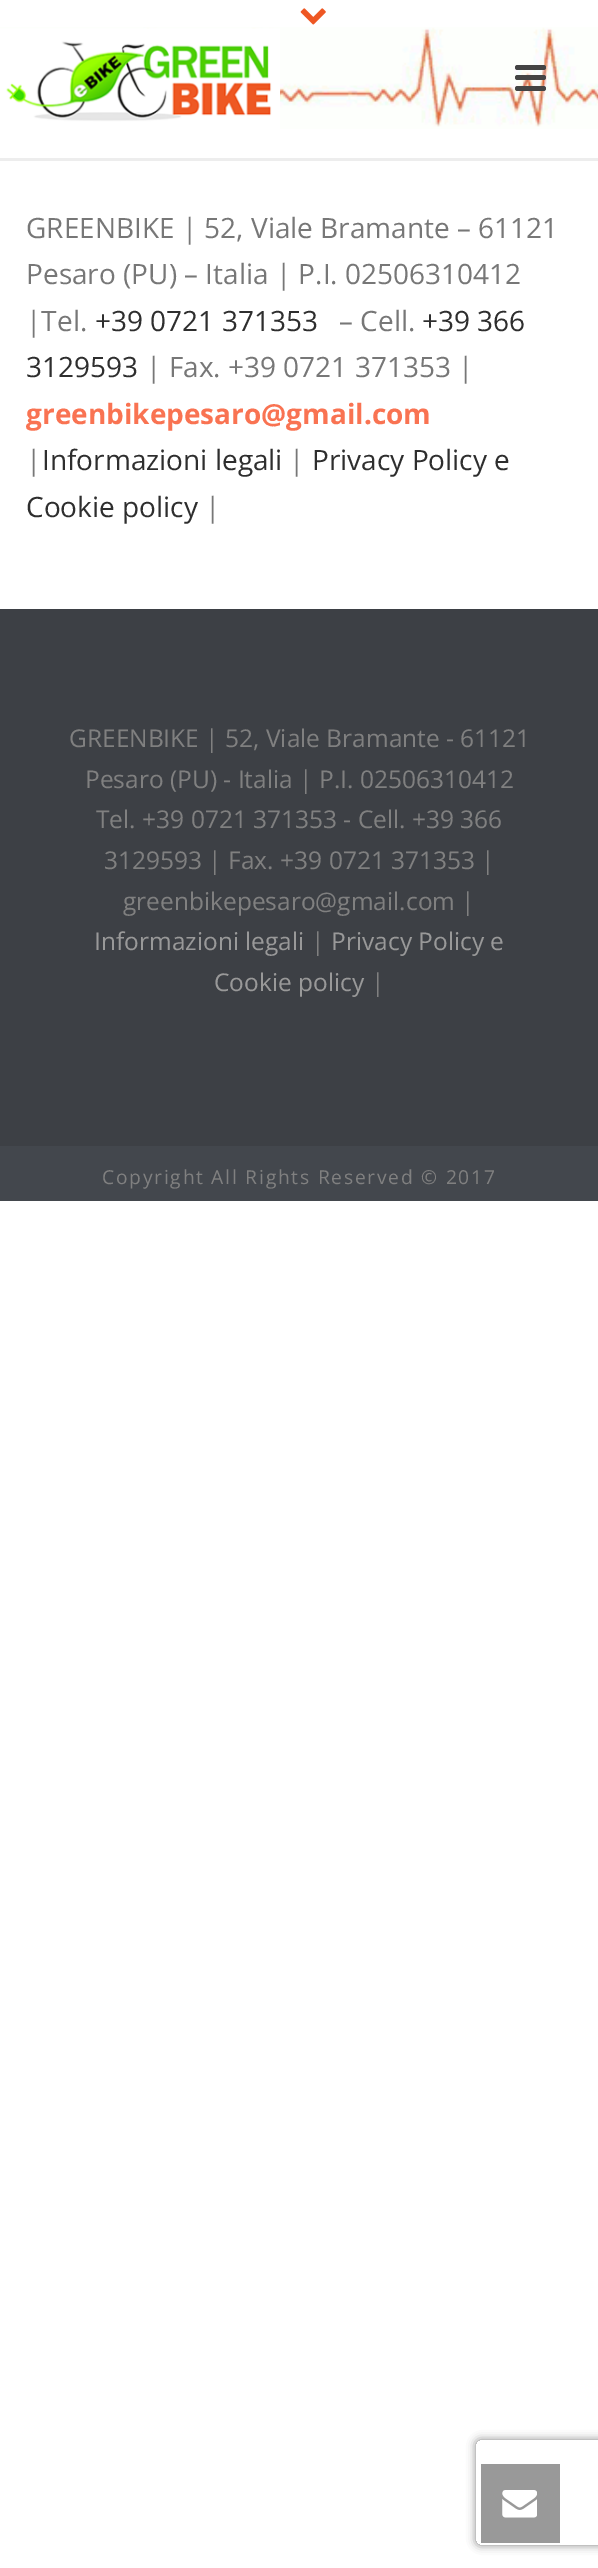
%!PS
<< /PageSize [598 2568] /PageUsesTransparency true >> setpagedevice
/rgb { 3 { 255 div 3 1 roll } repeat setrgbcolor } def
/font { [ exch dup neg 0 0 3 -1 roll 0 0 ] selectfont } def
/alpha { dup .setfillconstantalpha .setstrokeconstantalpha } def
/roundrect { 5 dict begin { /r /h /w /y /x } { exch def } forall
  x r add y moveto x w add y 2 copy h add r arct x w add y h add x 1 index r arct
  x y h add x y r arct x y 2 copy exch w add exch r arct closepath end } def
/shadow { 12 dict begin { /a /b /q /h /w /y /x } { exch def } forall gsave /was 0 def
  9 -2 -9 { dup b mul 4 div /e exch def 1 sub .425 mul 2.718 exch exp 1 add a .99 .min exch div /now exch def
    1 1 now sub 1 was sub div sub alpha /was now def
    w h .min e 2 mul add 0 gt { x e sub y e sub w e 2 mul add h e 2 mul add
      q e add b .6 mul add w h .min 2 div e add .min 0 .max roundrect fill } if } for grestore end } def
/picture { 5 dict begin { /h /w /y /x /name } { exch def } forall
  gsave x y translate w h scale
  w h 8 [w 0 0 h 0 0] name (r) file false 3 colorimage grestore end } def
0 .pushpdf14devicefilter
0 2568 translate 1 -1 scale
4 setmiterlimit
255 255 255 rgb
0 0 598 2568 rectfill
237 237 237 rgb
0 158 598 3 rectfill
(img/1.rgb) 300 8 26 17 picture
(img/2.rgb) 0 27 598 102 picture
(img/3.rgb) 0 28 280 101 picture
68 68 68 rgb
515 65 31 5 2.5 roundrect fill
515 75 31 5 2.5 roundrect fill
515 86 31 5 2.5 roundrect fill
61 64 69 rgb
0 609 598 537 rectfill
67 71 77 rgb
0 1146 598 55 rectfill
gsave
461 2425 moveto 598 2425 lineto 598 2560 lineto 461 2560 lineto closepath 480 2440 moveto 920 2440 lineto 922 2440 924 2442 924 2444 curveto 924 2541 lineto 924 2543 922 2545 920 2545 curveto 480 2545 lineto 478 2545 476 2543 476 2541 curveto 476 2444 lineto 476 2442 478 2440 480 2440 curveto closepath eoclip newpath
128 128 128 rgb
476 2440 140 105 4 4.5 1 shadow
grestore
153 153 153 rgb
481 2464 79 79 rectfill
(img/4.rgb) 502 2490 35 28 picture
/OpenSans-Regular 28 font
119 119 119 rgb
[
  [(GREENBIKE | 52, Viale Bramante – 61121) 26 238]
  [(Pesaro \(PU\) – Italia | P.I. 02506310412) 26 284]
  [(|Tel.) 26 331]
] { aload pop moveto show } forall
46 46 46 rgb
95 331 moveto (+39 0721 371353) show
119 119 119 rgb
339 331 moveto (– Cell.) show
46 46 46 rgb
422 331 moveto (+39 366) show
26 377 moveto (3129593) show
119 119 119 rgb
146 377 moveto (| Fax. +39 0721 371353 |) show
/OpenSans-Bold 28 font
249 115 82 rgb
26 424 moveto (greenbikepesaro@gmail.com) show
/OpenSans-Regular 28 font
119 119 119 rgb
26 470 moveto (|) show
46 46 46 rgb
42 470 moveto (Informazioni legali) show
119 119 119 rgb
289 470 moveto (|) show
46 46 46 rgb
312 470 moveto (Privacy Policy e) show
26 517 moveto (Cookie policy) show
119 119 119 rgb
205 517 moveto (|) show
/OpenSans-Regular 24.5 font
128 128 128 rgb
[
  [(GREENBIKE | 52, Viale Bramante - 61121) 69 747]
  [(Pesaro \(PU\) - Italia | P.I. 02506310412) 85 788]
  [(Tel. +39 0721 371353 - Cell. +39 366) 96 828]
  [(3129593 | Fax. +39 0721 371353 |) 104 869]
  [(greenbikepesaro@gmail.com |) 123 910]
] { aload pop moveto show } forall
153 153 153 rgb
94 950 moveto (Informazioni legali) show
128 128 128 rgb
311 950 moveto (|) show
153 153 153 rgb
331 950 moveto (Privacy Policy e) show
214 991 moveto (Cookie policy) show
128 128 128 rgb
371 991 moveto (|) show
/OpenSans-Regular 19.25 font
102 1184 moveto 1.75 0 (Copyright All Rights Reserved © 2017) ashow
.poppdf14devicefilter showpage
